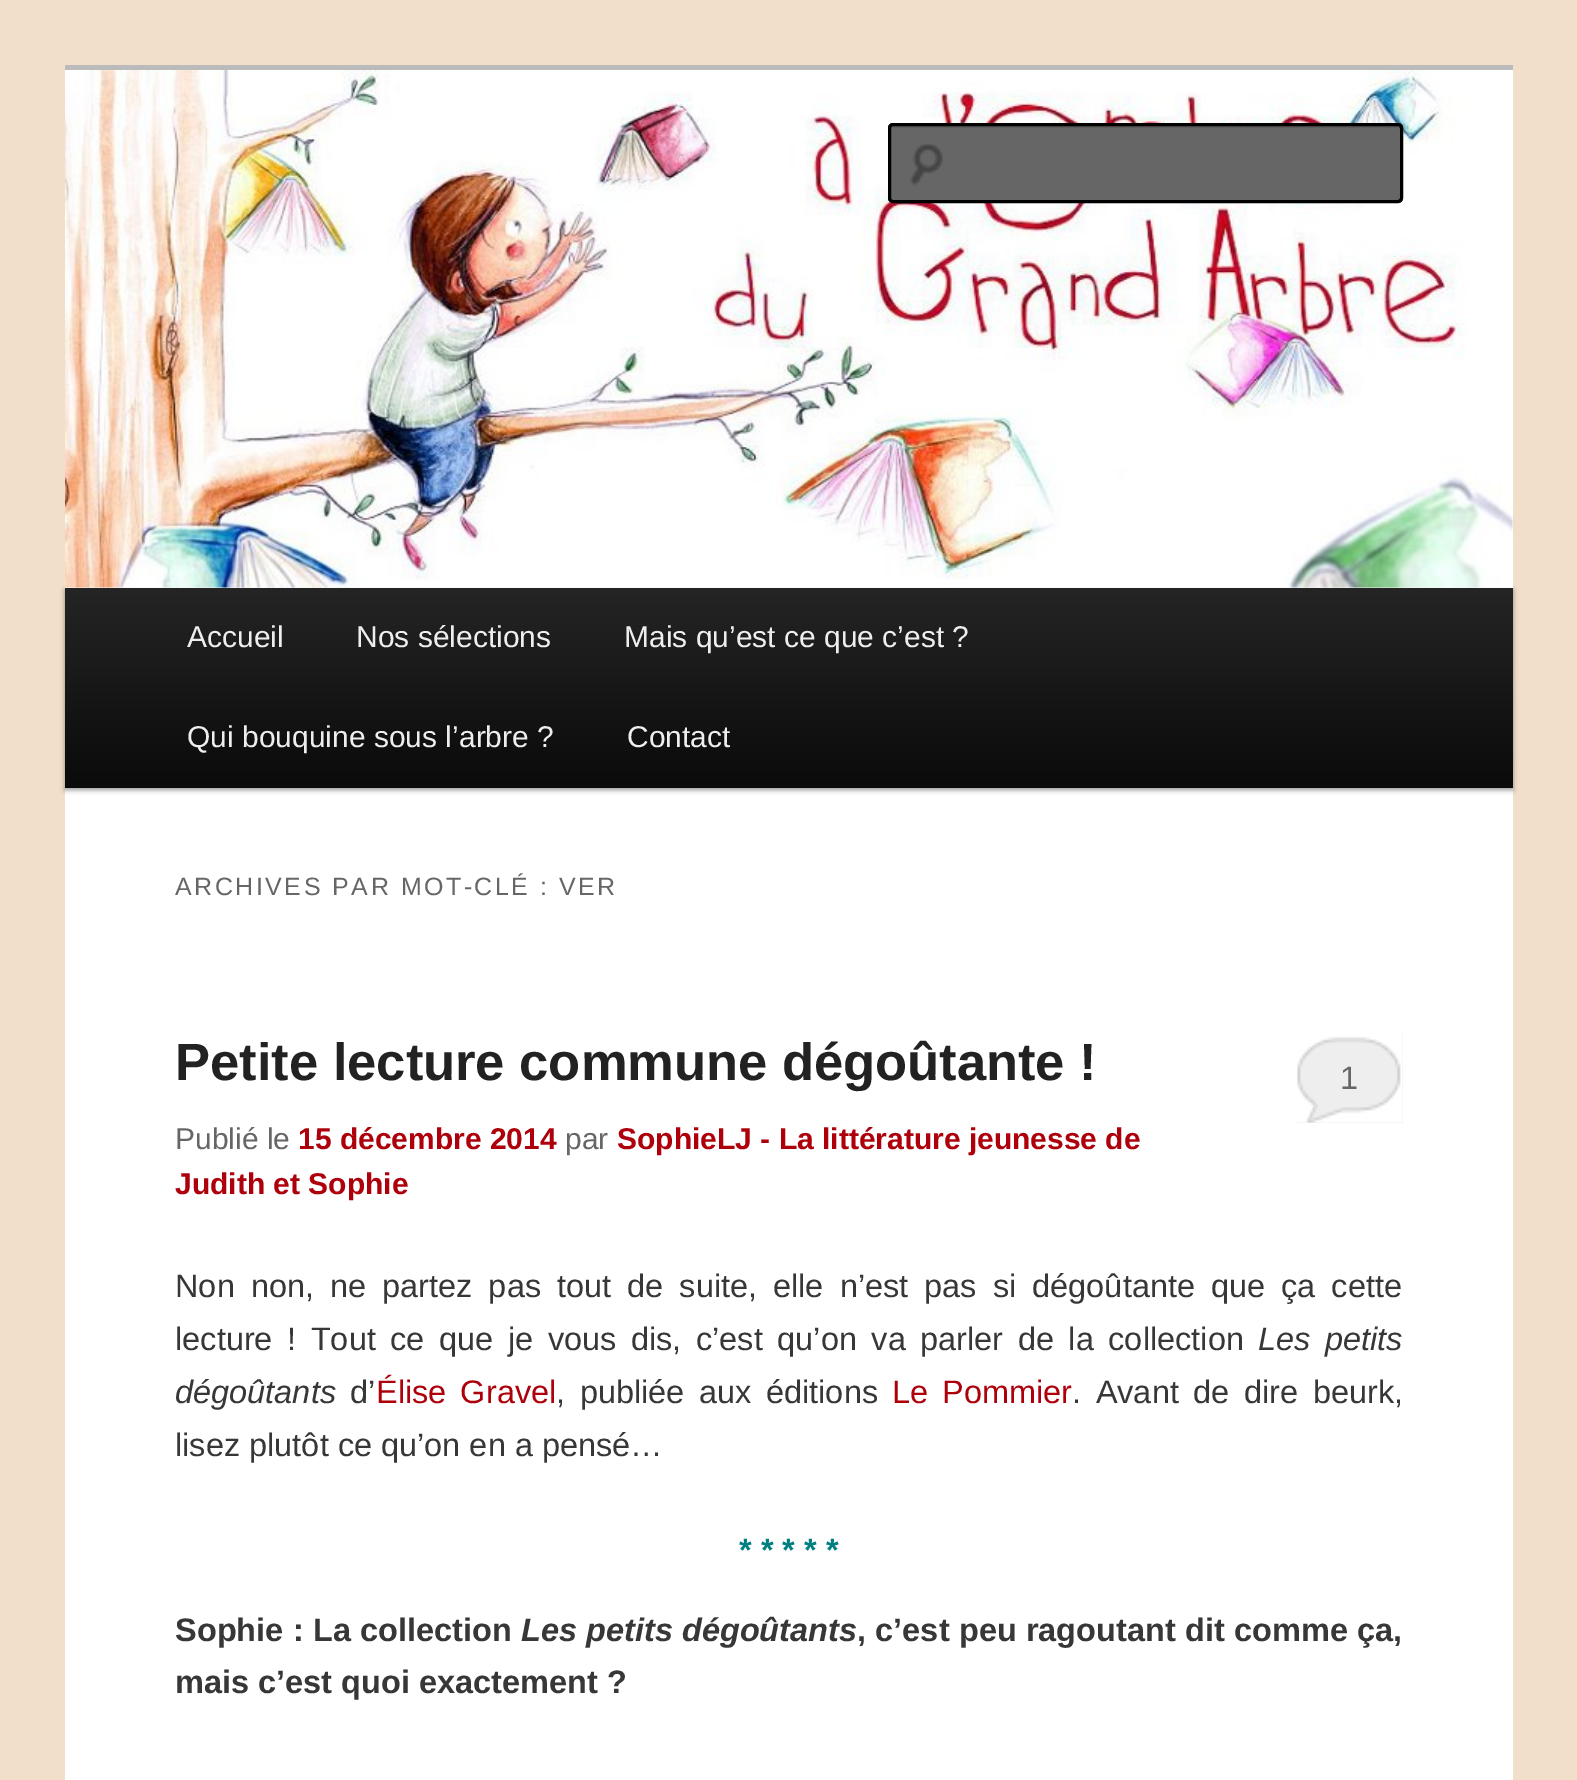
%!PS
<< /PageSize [1577 1780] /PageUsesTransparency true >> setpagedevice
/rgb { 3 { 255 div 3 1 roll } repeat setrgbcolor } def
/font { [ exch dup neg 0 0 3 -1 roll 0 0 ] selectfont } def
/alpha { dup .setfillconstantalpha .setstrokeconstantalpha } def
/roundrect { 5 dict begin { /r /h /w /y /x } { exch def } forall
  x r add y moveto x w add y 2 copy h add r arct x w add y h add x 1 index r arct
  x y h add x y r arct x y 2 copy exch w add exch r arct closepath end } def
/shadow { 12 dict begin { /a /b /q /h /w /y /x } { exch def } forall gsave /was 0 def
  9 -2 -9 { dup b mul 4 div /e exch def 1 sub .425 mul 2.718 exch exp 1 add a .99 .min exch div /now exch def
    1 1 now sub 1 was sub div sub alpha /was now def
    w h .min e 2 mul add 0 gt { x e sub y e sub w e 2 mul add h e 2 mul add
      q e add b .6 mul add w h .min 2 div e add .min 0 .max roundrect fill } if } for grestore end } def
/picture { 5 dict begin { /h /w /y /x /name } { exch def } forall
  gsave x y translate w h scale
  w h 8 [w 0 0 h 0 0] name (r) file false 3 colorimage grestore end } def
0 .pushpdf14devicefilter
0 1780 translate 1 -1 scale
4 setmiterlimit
242 223 201 rgb
0 0 1577 1780 rectfill
255 255 255 rgb
65 70 1448 1710 rectfill
187 187 187 rgb
65 65 1448 5 rectfill
0 0 0 rgb
65 590 1448 200 0 2.5 0.4 shadow
(img/1.rgb) 65 70 1448 518 picture
102 102 102 rgb
888 123 515 80 5 roundrect fill
(img/2.rgb) 910 143 33 43 picture
92 92 92 rgb
892 128 moveto 1398 128 lineto 1399 128 1400 129 1400 130 curveto 1400 126 lineto 1398 125 lineto 892 125 lineto 890 125 890 128 890 130 curveto 890 129 891 128 892 128 curveto closepath fill
0 0 0 rgb
3 setlinewidth
889.5 124.5 512 77 3.5 roundrect stroke
gsave 65 588 moveto 1513 588 lineto 1513 788 lineto 65 788 lineto closepath clip newpath
<< /ShadingType 2 /ColorSpace /DeviceRGB /Coords [789 587 789 788] /Extend [true true] /Function << /FunctionType 2 /Domain [0 1] /C0 [0.145 0.145 0.145] /C1 [0.039 0.039 0.039] /N 1 >> >> shfill grestore
238 238 238 rgb
1295 1033 108 90 rectfill
(img/3.rgb) 1295 1033 108 90 picture
/LiberationSans-Regular 30 font
[
  [(Accueil) 187 647]
  [(Nos sélections) 356 647]
  [(Mais qu’est ce que c’est ?) 624 647]
  [(Qui bouquine sous l’arbre ?) 187 747]
  [(Contact) 627 747]
] { aload pop moveto show } forall
/LiberationSans-Regular 25 font
102 102 102 rgb
175 895 moveto 2.5 0 (ARCHIVES PAR MOT-CLÉ : VER) ashow
/LiberationSans-Bold 52.5 font
34 34 34 rgb
175 1080 moveto (Petite lecture commune dégoûtante !) show
/LiberationSans-Regular 32.5 font
102 102 102 rgb
1340 1089 moveto (1) show
/LiberationSans-Regular 30 font
175 1149 moveto (Publié le) show
/LiberationSans-Bold 30 font
173 0 11 rgb
298 1149 moveto (15 décembre 2014) show
/LiberationSans-Regular 30 font
102 102 102 rgb
565 1149 moveto (par) show
/LiberationSans-Bold 30 font
173 0 11 rgb
617 1149 moveto (SophieLJ - La littérature jeunesse de) show
175 1194 moveto (Judith et Sophie) show
/LiberationSans-Regular 32.5 font
55 55 55 rgb
175 1297 moveto 7 0 32 (Non non, ne partez pas tout de suite, elle n’est pas si dégoûtante que ça cette) widthshow
175 1350 moveto 5.5 0 32 (lecture ! Tout ce que je vous dis, c’est qu’on va parler de la collection) widthshow
/LiberationSans-Italic 32.5 font
1258 1350 moveto 5.5 0 32 (Les petits) widthshow
175 1403 moveto (dégoûtants) show
/LiberationSans-Regular 32.5 font
350 1403 moveto (d’) show
173 0 11 rgb
376 1403 moveto 5 0 32 (Élise Gravel) widthshow
55 55 55 rgb
556 1403 moveto 5.5 0 32 (, publiée aux éditions) widthshow
173 0 11 rgb
892 1403 moveto 5 0 32 (Le Pommier) widthshow
55 55 55 rgb
1072 1403 moveto 5.5 0 32 (. Avant de dire beurk,) widthshow
175 1456 moveto (lisez plutôt ce qu’on en a pensé…) show
/LiberationSans-Bold 32.5 font
0 128 128 rgb
739 1561 moveto (* * * * *) show
55 55 55 rgb
175 1641 moveto 0.25 0 32 (Sophie : La collection) widthshow
/LiberationSans-BoldItalic 32.5 font
521 1641 moveto (Les petits dégoûtants) show
/LiberationSans-Bold 32.5 font
857 1641 moveto 0.25 0 32 (, c’est peu ragoutant dit comme ça,) widthshow
175 1693 moveto (mais c’est quoi exactement ?) show
.poppdf14devicefilter showpage
